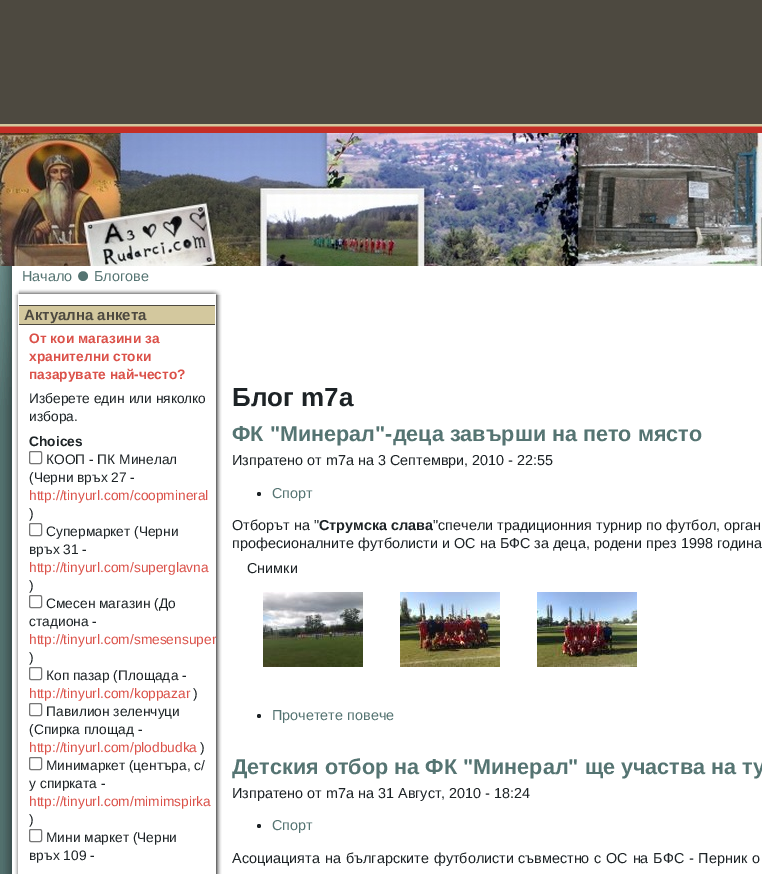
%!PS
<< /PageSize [762 874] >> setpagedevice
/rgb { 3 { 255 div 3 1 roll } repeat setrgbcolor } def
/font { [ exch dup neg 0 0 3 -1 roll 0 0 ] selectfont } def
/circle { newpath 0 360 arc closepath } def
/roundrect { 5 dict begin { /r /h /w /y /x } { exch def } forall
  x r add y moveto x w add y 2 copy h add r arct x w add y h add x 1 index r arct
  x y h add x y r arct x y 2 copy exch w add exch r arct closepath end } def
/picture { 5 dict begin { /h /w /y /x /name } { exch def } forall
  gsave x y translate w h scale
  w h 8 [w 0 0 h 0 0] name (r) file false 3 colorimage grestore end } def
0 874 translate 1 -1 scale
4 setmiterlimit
77 73 64 rgb
0 0 762 874 rectfill
(img/1.rgb) 0 124 762 9 picture
(img/2.rgb) 0 133 762 133 picture
(img/3.rgb) 0 266 12 608 picture
255 255 255 rgb
12 266 750 608 rectfill
(img/4.rgb) 78 271 10 10 picture
(img/5.rgb) 216 295 6 579 picture
(img/6.rgb) 14 295 4 579 picture
(img/7.rgb) 12 288 210 7 picture
(img/8.rgb) 12 289 7 6 picture
[
  [19 306 196 18 211 200 158]
  [19 305 196 1 77 73 64]
  [19 324 196 1 77 73 64]
] { aload pop rgb rectfill } forall
118 118 118 rgb
29.5 451.5 12 12 1.5 roundrect stroke
29.5 523.5 12 12 1.5 roundrect stroke
29.5 595.5 12 12 1.5 roundrect stroke
29.5 667.5 12 12 1.5 roundrect stroke
29.5 703.5 12 12 1.5 roundrect stroke
29.5 757.5 12 12 1.5 roundrect stroke
29.5 829.5 12 12 1.5 roundrect stroke
29 35 38 rgb
259 494 2 circle fill
(img/9.rgb) 263 592 100 75 picture
(img/10.rgb) 400 592 100 75 picture
(img/11.rgb) 537 592 100 75 picture
259 716 2 circle fill
259 826 2 circle fill
/LiberationSans-Regular 14.4 font
85 116 114 rgb
22 281 moveto (Начало) show
94 281 moveto (Блогове) show
/LiberationSans-Bold 15 font
77 73 64 rgb
24 320 moveto (Актуална анкета) show
/LiberationSans-Bold 13.75 font
219 81 73 rgb
[
  [(От кои магазини за) 29 343]
  [(хранителни стоки) 29 361]
  [(пазарувате най-често?) 29 379]
] { aload pop moveto show } forall
/LiberationSans-Regular 13.75 font
29 35 38 rgb
29 403 moveto (Изберете един или няколко) show
29 421 moveto (избора.) show
/LiberationSans-Bold 13.75 font
29 446 moveto (Choices) show
/LiberationSans-Regular 13.75 font
46 464 moveto (КООП - ПК Минелал) show
29 482 moveto (\(Черни връх 27 -) show
219 81 73 rgb
29 500 moveto (http://tinyurl.com/coopmineral) show
29 35 38 rgb
[
  [(\)) 29 518]
  [(Супермаркет \(Черни) 46 536]
  [(връх 31 -) 29 554]
] { aload pop moveto show } forall
219 81 73 rgb
29 572 moveto (http://tinyurl.com/superglavna) show
29 35 38 rgb
[
  [(\)) 29 590]
  [(Смесен магазин \(До) 46 608]
  [(стадиона -) 29 626]
] { aload pop moveto show } forall
219 81 73 rgb
29 644 moveto (http://tinyurl.com/smesensuper) show
29 35 38 rgb
29 662 moveto (\)) show
46 680 moveto (Коп пазар \(Площада -) show
219 81 73 rgb
29 698 moveto (http://tinyurl.com/koppazar) show
29 35 38 rgb
[
  [(\)) 193 698]
  [(Павилион зеленчуци) 46 716]
  [(\(Спирка площад -) 29 734]
] { aload pop moveto show } forall
219 81 73 rgb
29 752 moveto (http://tinyurl.com/plodbudka) show
29 35 38 rgb
[
  [(\)) 200 752]
  [(Минимаркет \(центъра, с/) 46 770]
  [(у спирката -) 29 788]
] { aload pop moveto show } forall
219 81 73 rgb
29 806 moveto (http://tinyurl.com/mimimspirka) show
29 35 38 rgb
[
  [(\)) 29 824]
  [(Мини маркет \(Черни) 46 842]
  [(връх 109 -) 29 860]
] { aload pop moveto show } forall
/LiberationSans-Bold 26 font
232 406 moveto (Блог m7a) show
/LiberationSans-Bold 21.6 font
85 116 114 rgb
232 441 moveto (ФК "Минерал"-деца завърши на пето място) show
/LiberationSans-Regular 14.4 font
29 35 38 rgb
232 465 moveto (Изпратено от m7a на 3 Септември, 2010 - 22:55) show
85 116 114 rgb
272 498 moveto (Спорт) show
29 35 38 rgb
232 530 moveto (Отборът на ") show
/LiberationSans-Bold 14.4 font
319 530 moveto (Струмска слава) show
/LiberationSans-Regular 14.4 font
[
  [("спечели традиционния турнир по футбол, орган) 433 530]
  [(професионалните футболисти и ОС на БФС за деца, родени през 1998 година) 232 548]
  [(Снимки) 247 573]
] { aload pop moveto show } forall
85 116 114 rgb
272 720 moveto (Прочетете повече) show
/LiberationSans-Bold 21.6 font
232 774 moveto (Детския отбор на ФК "Минерал" ще участва на ту) show
/LiberationSans-Regular 14.4 font
29 35 38 rgb
232 798 moveto (Изпратено от m7a на 31 Август, 2010 - 18:24) show
85 116 114 rgb
272 830 moveto (Спорт) show
29 35 38 rgb
232 863 moveto 1 0 32 (Асоциацията на българските футболисти) widthshow
518 863 moveto 0.75 0 32 (съвместно с ОС на БФС - Перник о) widthshow
showpage
